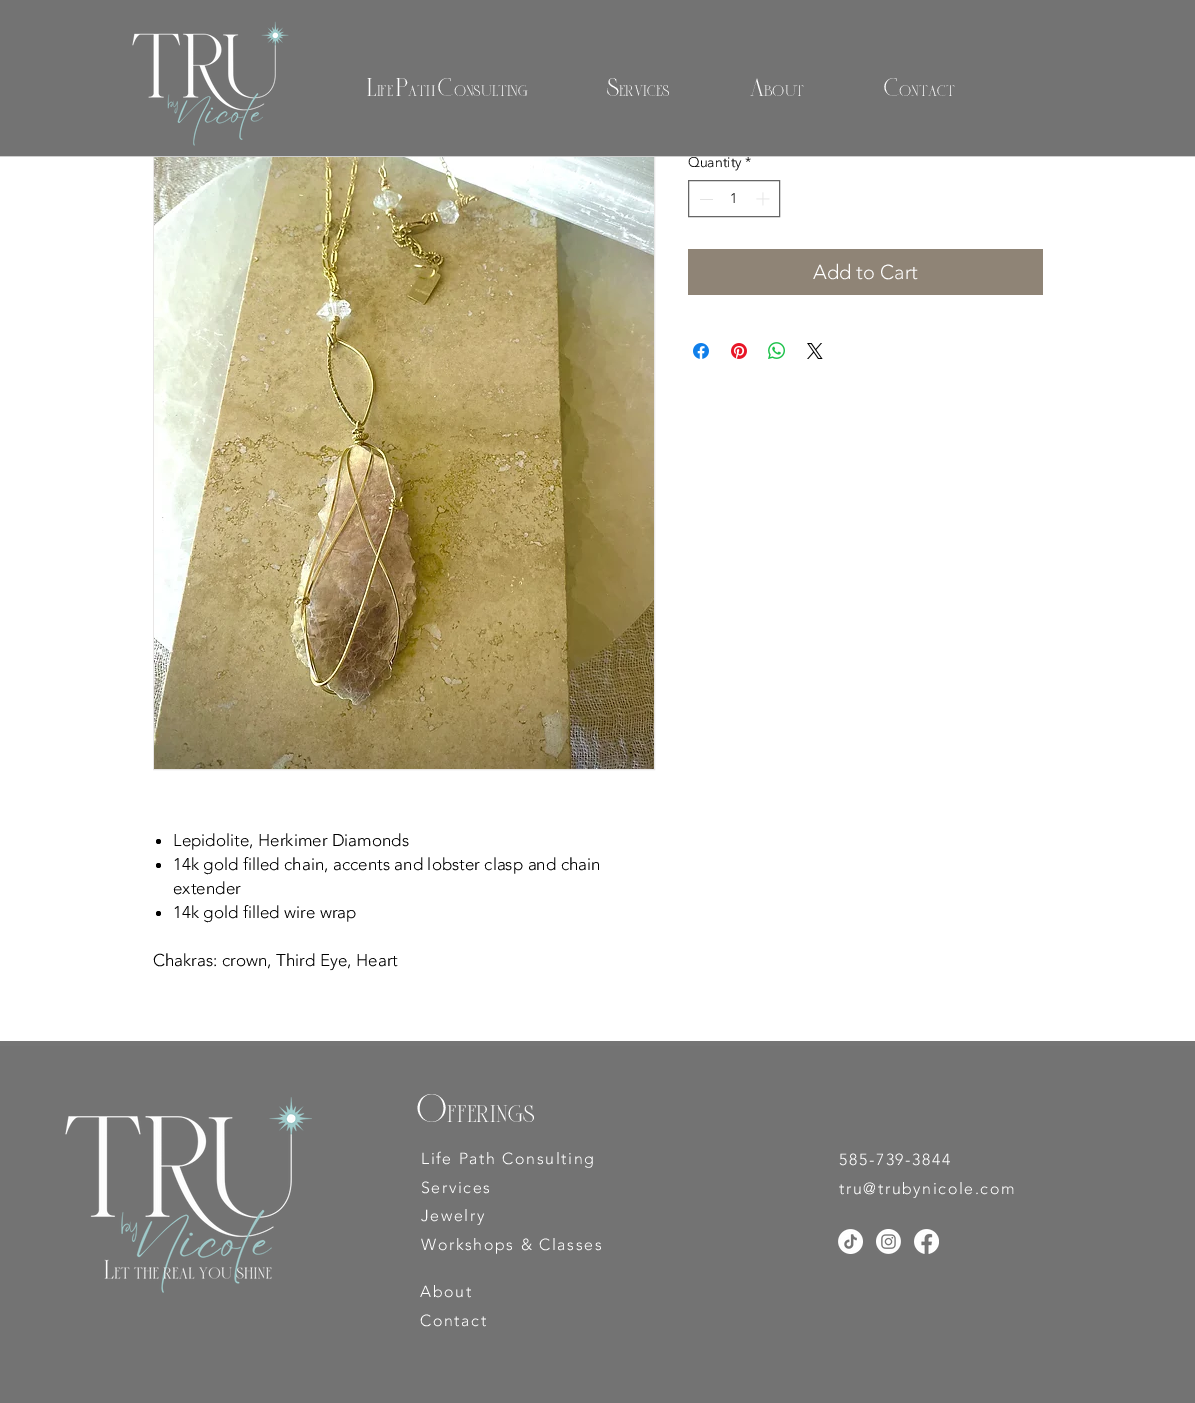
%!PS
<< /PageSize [1195 1403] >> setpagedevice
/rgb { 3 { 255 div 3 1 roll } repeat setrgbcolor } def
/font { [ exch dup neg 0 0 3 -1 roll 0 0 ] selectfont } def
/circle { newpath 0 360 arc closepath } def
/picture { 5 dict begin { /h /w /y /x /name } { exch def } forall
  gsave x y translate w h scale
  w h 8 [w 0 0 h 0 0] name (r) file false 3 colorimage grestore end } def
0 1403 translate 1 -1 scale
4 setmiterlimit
255 255 255 rgb
0 0 1195 1403 rectfill
232 230 230 rgb
153.5 32.5 501 737 rectstroke
115 115 115 rgb
0 0 1195 156 rectfill
(img/1.rgb) 132 21 157 125 picture
102 102 102 rgb
688.5 180.5 91 36 rectstroke
227 227 227 rgb
700 199 13 1 rectfill
(img/2.rgb) 756 192 14 14 picture
143 132 118 rgb
688 249 355 46 rectfill
(img/3.rgb) 693 343 16 16 picture
(img/4.rgb) 731 343 16 16 picture
(img/5.rgb) 768 342 17 17 picture
(img/6.rgb) 807 343 16 16 picture
(img/7.rgb) 154 157 500 612 picture
0 0 0 rgb
158.5 841.5 2.5 circle fill
158.5 865.5 2.5 circle fill
158.5 913.5 2.5 circle fill
115 115 115 rgb
0 1046 1195 357 rectfill
117 117 117 rgb
0 1041 1195 5 rectfill
(img/8.rgb) 65 1097 247 196 picture
(img/9.rgb) 838 1229 25 25 picture
(img/10.rgb) 876 1229 25 25 picture
(img/11.rgb) 914 1229 25 25 picture
/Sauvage-Regular 18 font
255 255 255 rgb
[
  [(Life Path Consulting) 367 96]
  [(Services) 607 96]
  [(About) 750 96]
  [(Contact) 884 96]
] { aload pop moveto show } forall
/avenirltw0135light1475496-Light 14 font
0 0 0 rgb
688 167 moveto (Quantity) show
206 206 206 rgb
0 156 1195 1 rectfill
0 0 0 rgb
745 167 moveto (*) show
730 203 moveto (1) show
/avenirltw0135light1475496-Light 20 font
255 255 255 rgb
813 279 moveto (Add to Cart) show
/avenirltw0135light1475496-Light 17 font
0 0 0 rgb
[
  [(Lepidolite, Herkimer Diamonds) 173 846]
  [(14k gold filled chain, accents and lobster clasp and chain) 173 870]
  [(extender) 173 894]
  [(14k gold filled wire wrap) 173 918]
  [(Chakras: crown, Third Eye, Heart) 153 966]
] { aload pop moveto show } forall
/Sauvage-Regular 28 font
255 255 255 rgb
417 1122 moveto (Offerings) show
/avenirltw0135light1475496-Light 16 font
421 1164 moveto 1.6 0 (Life Path Consulting) ashow
421 1193 moveto 1.6 0 (Services) ashow
421 1221 moveto 1.6 0 (Jewelry) ashow
421 1250 moveto 1.6 0 (Workshops & Classes) ashow
420 1297 moveto 1.6 0 (About) ashow
420 1326 moveto 1.6 0 (Contact) ashow
839 1165 moveto 1.6 0 (585-739-3844) ashow
839 1194 moveto 1.6 0 (tru@trubynicole.com) ashow
showpage
